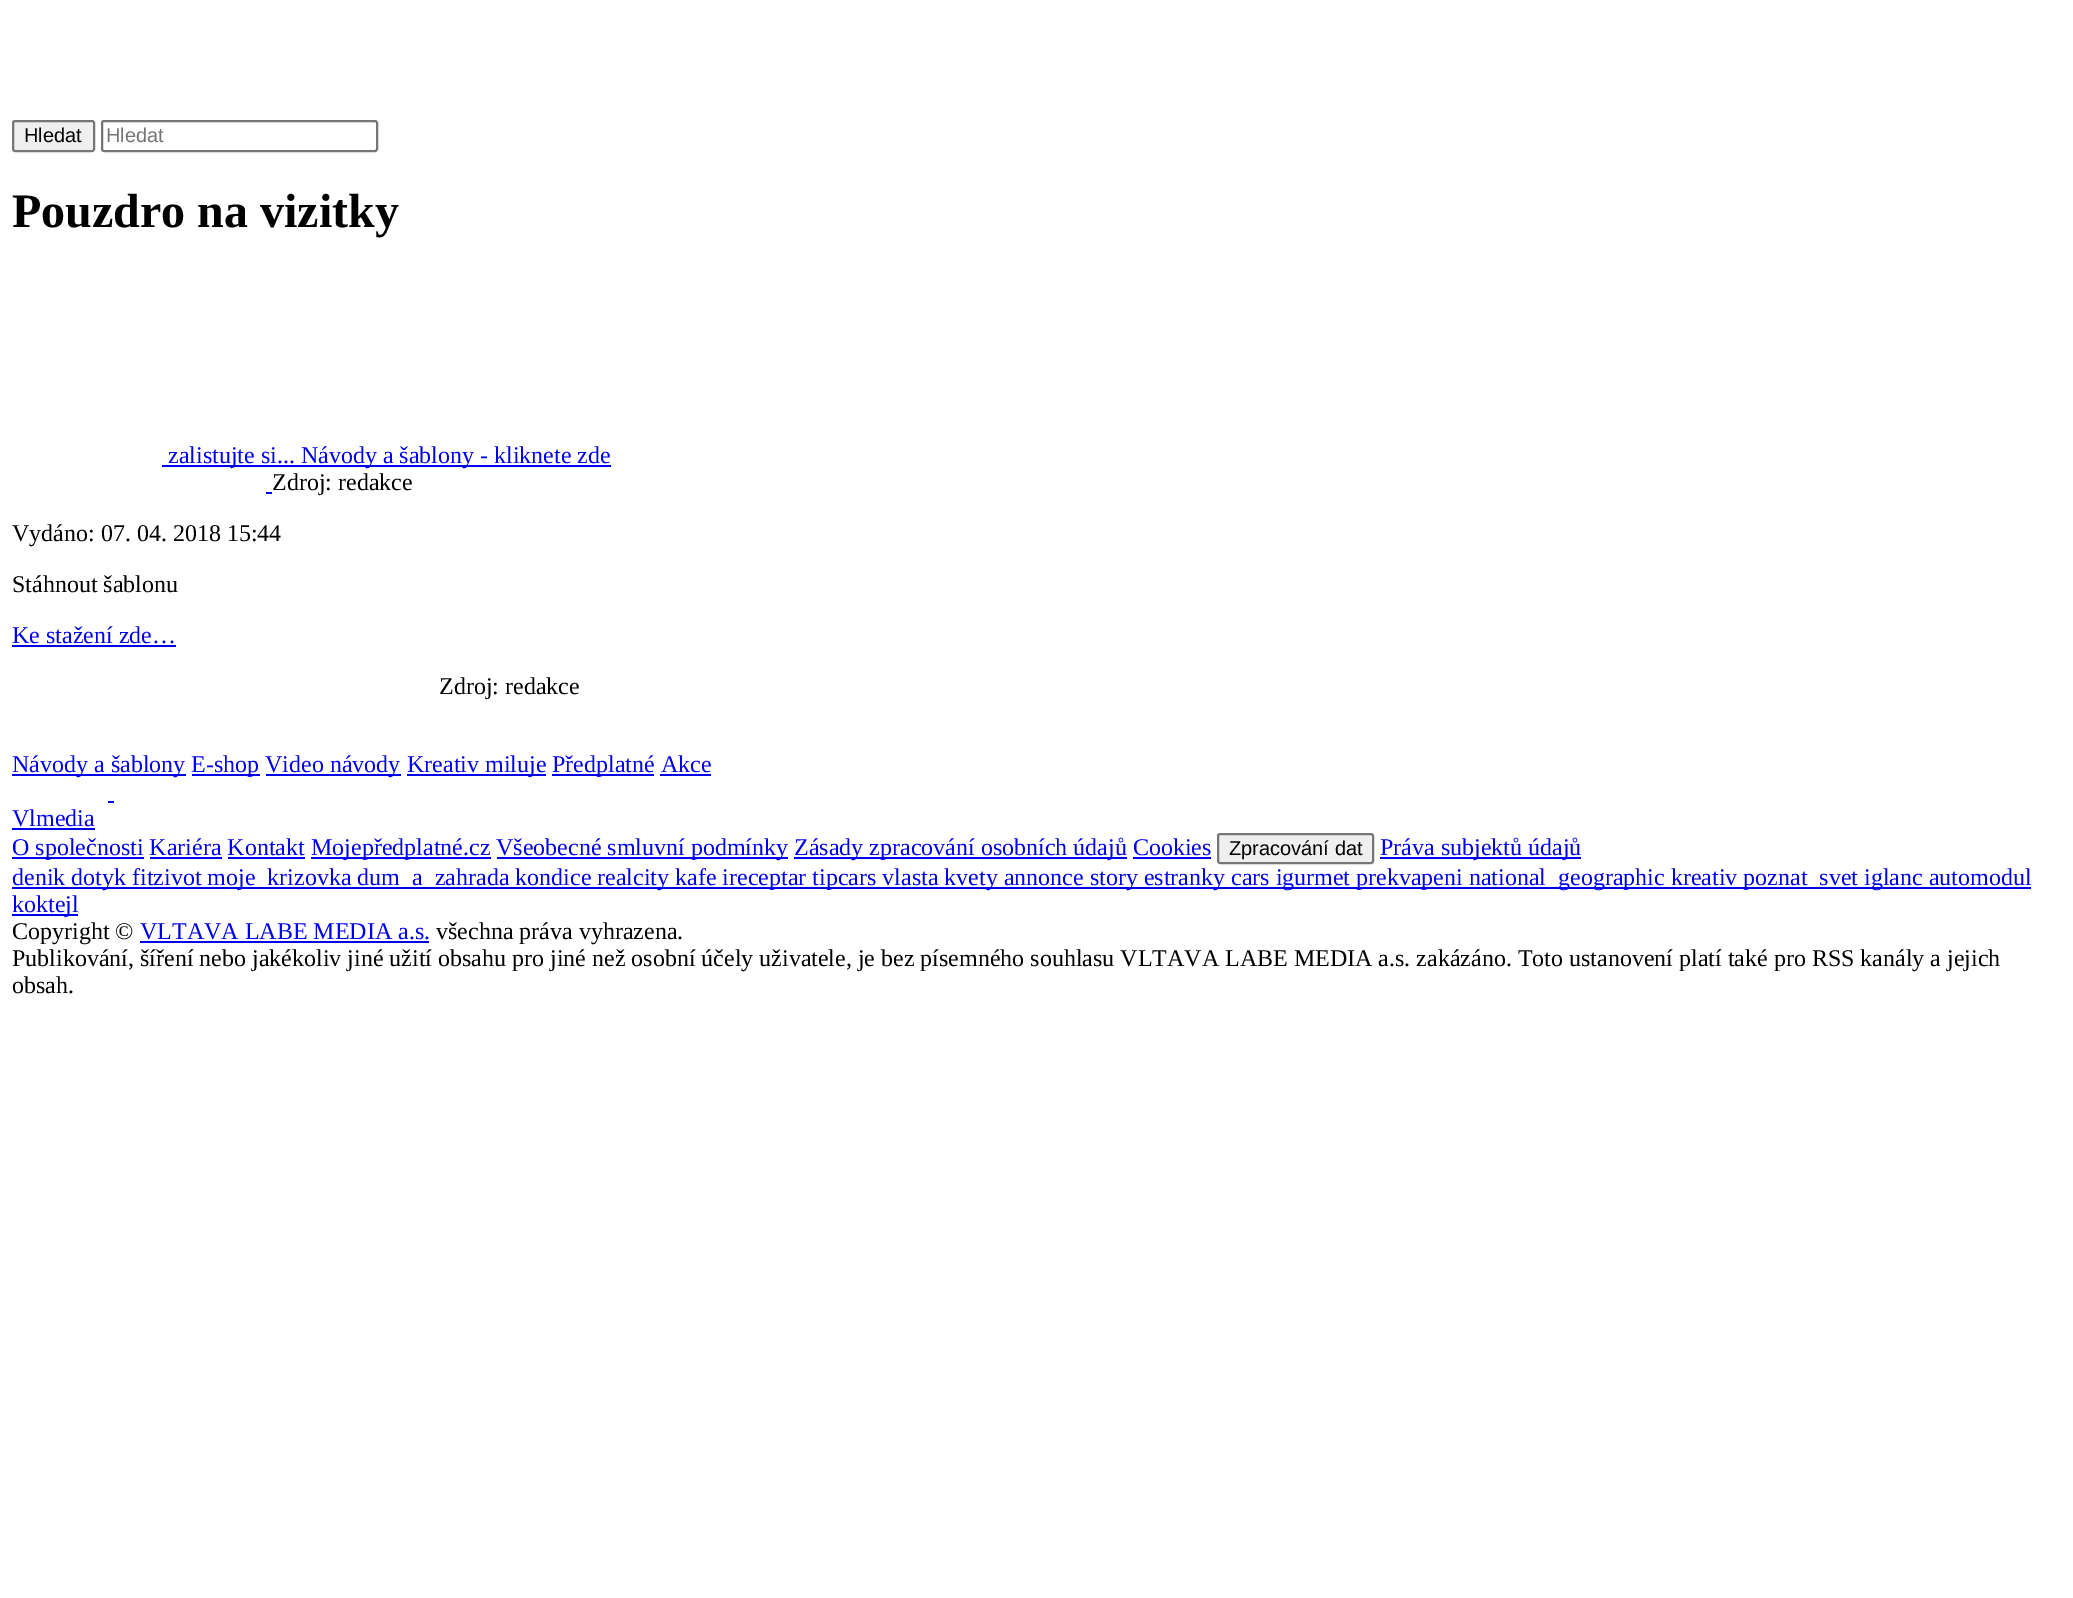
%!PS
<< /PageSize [2073 1598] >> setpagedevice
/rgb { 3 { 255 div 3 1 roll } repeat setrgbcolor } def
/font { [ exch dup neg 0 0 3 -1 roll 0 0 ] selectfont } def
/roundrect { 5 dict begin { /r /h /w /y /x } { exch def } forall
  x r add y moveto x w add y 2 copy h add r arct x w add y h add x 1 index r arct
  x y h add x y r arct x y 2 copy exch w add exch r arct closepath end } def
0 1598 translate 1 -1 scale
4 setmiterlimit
255 255 255 rgb
0 0 2073 1598 rectfill
239 239 239 rgb
13 121 81 30 2 roundrect gsave fill grestore
118 118 118 rgb
2 setlinewidth
stroke
102 121 275 30 2 roundrect stroke
[
  [162 465 449 2 0 0 238]
  [266 492 6 2 0 0 238]
  [12 645 164 2 0 0 238]
  [12 774 174 2 0 0 238]
  [192 774 68 2 0 0 238]
  [266 774 135 2 0 0 238]
  [407 774 139 2 0 0 238]
  [552 774 102 2 0 0 238]
  [660 774 51 2 0 0 238]
  [108 801 6 2 0 0 238]
  [12 828 83 2 0 0 238]
  [12 857 132 2 0 0 238]
  [311 857 180 2 0 0 238]
  [497 857 291 2 0 0 238]
  [794 857 333 2 0 0 238]
] { aload pop rgb rectfill } forall
239 239 239 rgb
1218 834 155 29 2 roundrect gsave fill grestore
118 118 118 rgb
stroke
[
  [1380 857 201 2 0 0 238]
  [150 857 72 2 0 0 238]
  [228 857 77 2 0 0 238]
  [1133 857 78 2 0 0 238]
  [12 887 2019 2 0 0 238]
  [12 914 66 2 0 0 238]
  [140 941 289 2 0 0 238]
] { aload pop rgb rectfill } forall
/LiberationSans-Regular 20 font
0 0 0 rgb
24 142 moveto (Hledat) show
117 117 117 rgb
106 142 moveto (Hledat) show
/LiberationSerif-Bold 48 font
0 0 0 rgb
12 227 moveto (Pouzdro na vizitky) show
/LiberationSerif-Regular 24 font
0 0 238 rgb
168 463 moveto (zalistujte si... Návody a šablony - kliknete zde) show
0 0 0 rgb
[
  [(Zdroj: redakce) 272 490]
  [(Vydáno: 07. 04. 2018 15:44) 12 541]
  [(Stáhnout šablonu) 12 592]
] { aload pop moveto show } forall
0 0 238 rgb
12 643 moveto (Ke stažení zde…) show
0 0 0 rgb
439 694 moveto (Zdroj: redakce) show
0 0 238 rgb
[
  [(Návody a šablony) 12 772]
  [(E-shop) 191 772]
  [(Video návody) 265 772]
  [(Kreativ miluje) 407 772]
  [(Předplatné Akce) 552 772]
  [(Vlmedia) 12 826]
  [(O společnosti Kariéra Kontakt) 12 855]
  [(Mojepředplatné.cz) 311 855]
  [(Všeobecné smluvní podmínky) 496 855]
  [(Zásady zpracování osobních údajů Cookies) 794 855]
] { aload pop moveto show } forall
/LiberationSans-Regular 20 font
0 0 0 rgb
1229 855 moveto (Zpracování dat) show
/LiberationSerif-Regular 24 font
0 0 238 rgb
[
  [(Práva subjektů údajů) 1380 855]
  [(denik dotyk fitzivot moje_krizovka dum_a_zahrada kondice realcity kafe ireceptar tipcars vlasta kvety annonce story estranky cars igurmet prekvapeni national_geographic kreativ poznat_svet iglanc automodul) 12 885]
  [(koktejl) 12 912]
] { aload pop moveto show } forall
0 0 0 rgb
12 939 moveto (Copyright ©) show
0 0 238 rgb
140 939 moveto (VLTAVA LABE MEDIA a.s.) show
0 0 0 rgb
[
  [(všechna práva vyhrazena.) 436 939]
  [(Publikování, šíření nebo jakékoliv jiné užití obsahu pro jiné než osobní účely uživatele, je bez písemného souhlasu VLTAVA LABE MEDIA a.s. zakázáno. Toto ustanovení platí také pro RSS kanály a jejich) 12 966]
  [(obsah.) 12 993]
] { aload pop moveto show } forall
showpage
